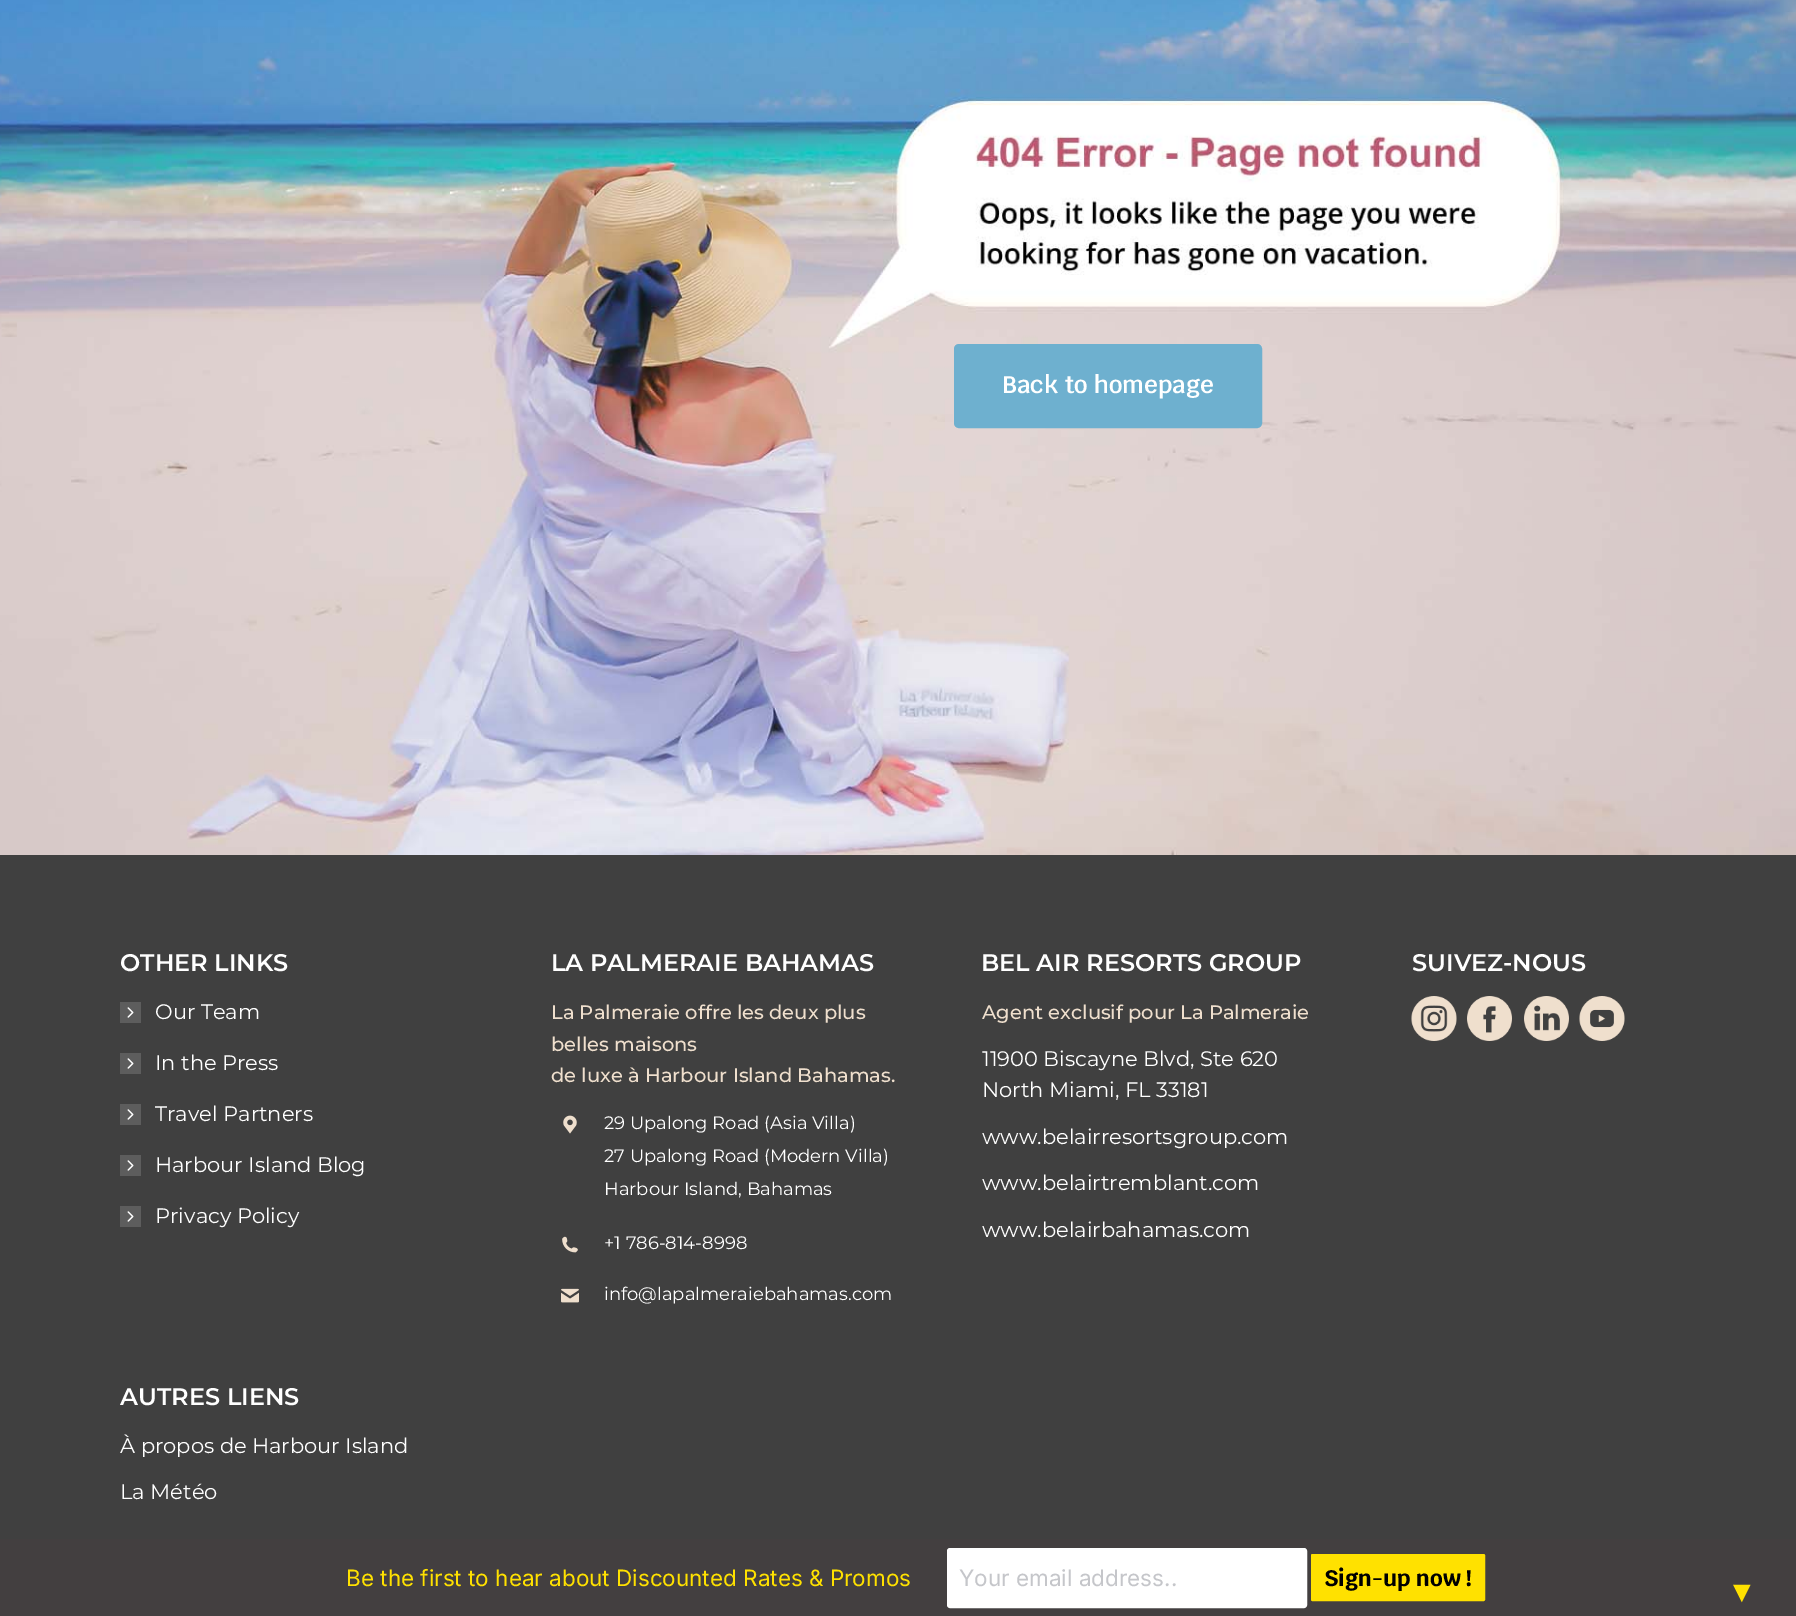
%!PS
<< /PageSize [1796 1616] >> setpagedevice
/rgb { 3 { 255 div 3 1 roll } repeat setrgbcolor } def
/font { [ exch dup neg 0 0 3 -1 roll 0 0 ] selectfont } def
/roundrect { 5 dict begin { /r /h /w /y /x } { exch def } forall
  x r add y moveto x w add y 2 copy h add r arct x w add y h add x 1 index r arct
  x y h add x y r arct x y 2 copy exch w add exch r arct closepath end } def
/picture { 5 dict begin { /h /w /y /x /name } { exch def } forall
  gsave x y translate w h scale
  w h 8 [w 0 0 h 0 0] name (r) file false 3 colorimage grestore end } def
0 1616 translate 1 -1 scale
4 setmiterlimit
64 64 64 rgb
0 0 1796 1616 rectfill
(img/1.rgb) 0 0 1796 855 picture
110 176 207 rgb
955.5 345.5 305 81 3.5 roundrect gsave fill grestore
3 setlinewidth
stroke
93 93 93 rgb
120 1002 21 21 rectfill
(img/2.rgb) 127 1007 7 11 picture
120 1053 21 21 rectfill
(img/2.rgb) 127 1058 7 11 picture
120 1104 21 21 rectfill
(img/2.rgb) 127 1109 7 11 picture
120 1155 21 21 rectfill
(img/2.rgb) 127 1160 7 11 picture
120 1206 21 21 rectfill
(img/2.rgb) 127 1211 7 11 picture
(img/3.rgb) 563 1115 14 19 picture
(img/4.rgb) 562 1236 16 17 picture
(img/5.rgb) 561 1288 18 15 picture
(img/6.rgb) 1411 996 46 45 picture
(img/7.rgb) 1467 996 45 45 picture
(img/8.rgb) 1524 996 45 45 picture
(img/9.rgb) 1579 996 46 45 picture
67 63 64 rgb
0 1539 1796 77 rectfill
255 255 255 rgb
948 1549 358 58 2 roundrect gsave fill grestore
2 setlinewidth
stroke
255 225 0 rgb
1312 1555 172 45 0.5 roundrect gsave fill grestore
stroke
/Krub-SemiBold 24 font
255 255 255 rgb
1002 393 moveto (Back to homepage) show
/Montserrat-SemiBold 24 font
120 971 moveto (OTHER LINKS) show
/Montserrat-Regular 21 font
[
  [(Our Team) 155 1019]
  [(In the Press) 155 1070]
  [(Travel Partners) 155 1121]
  [(Harbour Island Blog) 155 1172]
  [(Privacy Policy) 155 1223]
] { aload pop moveto show } forall
/Montserrat-SemiBold 24 font
551 971 moveto (LA PALMERAIE BAHAMAS) show
/Montserrat-Medium 19.5 font
239 223 205 rgb
[
  [(La Palmeraie offre les deux plus) 551 1019]
  [(belles maisons) 551 1051]
  [(de luxe à Harbour Island Bahamas.) 551 1082]
] { aload pop moveto show } forall
/Montserrat-Regular 18 font
255 255 255 rgb
[
  [(29 Upalong Road \(Asia Villa\)) 604 1129]
  [(27 Upalong Road \(Modern Villa\)) 604 1162]
  [(Harbour Island, Bahamas) 604 1195]
  [(+1 786-814-8998) 604 1249]
  [(info@lapalmeraiebahamas.com) 604 1300]
] { aload pop moveto show } forall
/Montserrat-SemiBold 24 font
981 971 moveto (BEL AIR RESORTS GROUP) show
/Montserrat-Medium 19.5 font
239 223 205 rgb
982 1019 moveto (Agent exclusif pour La Palmeraie) show
/Montserrat-Regular 21 font
255 255 255 rgb
[
  [(11900 Biscayne Blvd, Ste 620) 982 1066]
  [(North Miami, FL 33181) 982 1097]
  [(www.belairresortsgroup.com) 982 1144]
  [(www.belairtremblant.com) 982 1190]
  [(www.belairbahamas.com) 982 1237]
] { aload pop moveto show } forall
/Montserrat-SemiBold 24 font
1412 971 moveto (SUIVEZ-NOUS) show
120 1405 moveto (AUTRES LIENS) show
/Montserrat-Regular 21 font
120 1453 moveto (À propos de Harbour Island) show
120 1499 moveto (La Météo) show
/Inter-Regular 22.5 font
255 225 0 rgb
346 1586 moveto (Be the first to hear about Discounted Rates & Promos) show
197 198 202 rgb
959 1586 moveto (Your email address..) show
/Krub-Bold 22.5 font
0 0 0 rgb
1324 1586 moveto (Sign-up now !) show
/LiberationSans-Regular 30 font
255 225 0 rgb
1727 1602 moveto (▼) show
showpage
